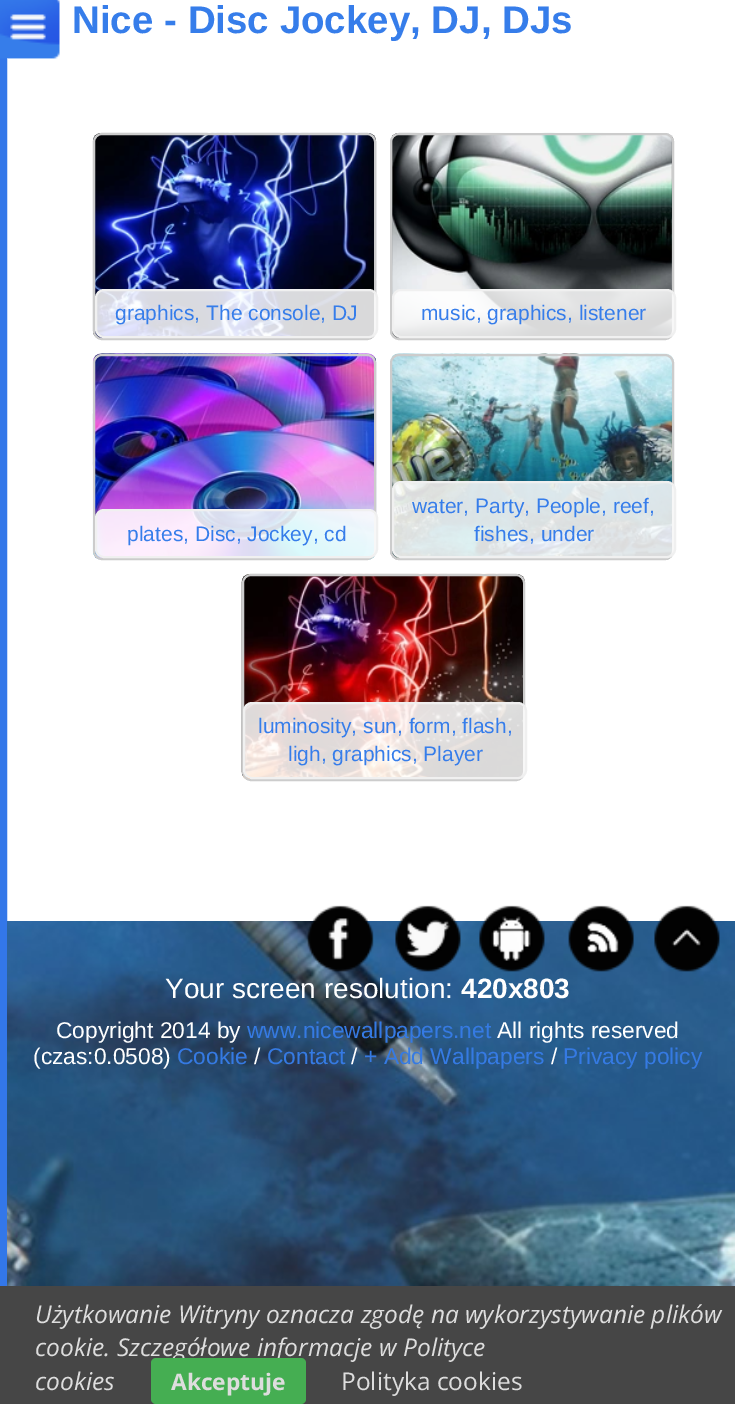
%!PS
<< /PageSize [735 1404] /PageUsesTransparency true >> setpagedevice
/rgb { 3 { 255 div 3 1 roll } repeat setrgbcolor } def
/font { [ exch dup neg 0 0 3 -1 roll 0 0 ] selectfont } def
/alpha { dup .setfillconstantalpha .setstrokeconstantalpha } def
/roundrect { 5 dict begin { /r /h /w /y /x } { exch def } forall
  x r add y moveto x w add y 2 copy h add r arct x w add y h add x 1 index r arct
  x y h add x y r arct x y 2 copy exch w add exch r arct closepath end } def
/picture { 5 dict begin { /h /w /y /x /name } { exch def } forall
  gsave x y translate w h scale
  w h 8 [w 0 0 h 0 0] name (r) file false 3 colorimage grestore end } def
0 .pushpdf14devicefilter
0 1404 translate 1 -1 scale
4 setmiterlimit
255 255 255 rgb
0 0 735 1404 rectfill
51 119 233 rgb
9 setlinewidth
-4.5 -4.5 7 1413 rectstroke
(img/1.rgb) 0 0 60 59 picture
(img/2.rgb) 92 132 285 208 picture
204 204 204 rgb
2 setlinewidth
94 134 281 205 8 roundrect stroke
0.85 alpha
255 255 255 rgb
96 290 281 47 8 roundrect fill
1 alpha
240 240 240 rgb
96 290 281 47 8 roundrect stroke
(img/3.rgb) 390 132 284 208 picture
204 204 204 rgb
391 134 282 205 8 roundrect stroke
0.85 alpha
255 255 255 rgb
393 290 282 47 8 roundrect fill
1 alpha
240 240 240 rgb
393 290 282 47 8 roundrect stroke
(img/4.rgb) 92 353 285 207 picture
204 204 204 rgb
94 355 281 204 8 roundrect stroke
0.85 alpha
255 255 255 rgb
96 510 281 47 8 roundrect fill
1 alpha
240 240 240 rgb
96 510 281 47 8 roundrect stroke
(img/5.rgb) 390 353 284 207 picture
204 204 204 rgb
391 355 282 204 8 roundrect stroke
0.85 alpha
255 255 255 rgb
393 482 282 75 8 roundrect fill
1 alpha
240 240 240 rgb
393 482 282 75 8 roundrect stroke
(img/6.rgb) 241 573 284 208 picture
204 204 204 rgb
243 575 281 205 8 roundrect stroke
0.85 alpha
255 255 255 rgb
244 703 282 75 8 roundrect fill
1 alpha
240 240 240 rgb
244 703 282 75 8 roundrect stroke
(img/12.rgb) 7 921 728 365 picture
(img/7.rgb) 307 905 67 67 picture
(img/8.rgb) 395 905 66 67 picture
(img/9.rgb) 479 905 66 67 picture
(img/10.rgb) 568 905 66 67 picture
(img/11.rgb) 654 905 66 67 picture
(img/13.rgb) 7 1254 728 32 picture
70 70 70 rgb
0 1286 735 118 rectfill
/LiberationSans-Bold 38.5 font
54 125 234 rgb
72 33 moveto (Nice - Disc Jockey, DJ, DJs) show
/LiberationSans-Regular 21 font
[
  [(graphics, The console, DJ) 115 320]
  [(music, graphics, listener) 421 320]
  [(plates, Disc, Jockey, cd) 127 541]
  [(water, Party, People, reef,) 412 513]
  [(fishes, under) 474 541]
  [(luminosity, sun, form, flash,) 258 733]
  [(ligh, graphics, Player) 288 761]
] { aload pop moveto show } forall
/LiberationSans-Regular 28 font
255 255 255 rgb
165 998 moveto (Your screen resolution:) show
/LiberationSans-Bold 28 font
461 998 moveto (420x803) show
/LiberationSans-Regular 22.75 font
56 1038 moveto (Copyright 2014 by) show
53 122 227 rgb
247 1038 moveto (www.nicewallpapers.net) show
255 255 255 rgb
497 1038 moveto (All rights reserved) show
33 1064 moveto (\(czas:0.0508\)) show
53 122 227 rgb
177 1064 moveto (Cookie) show
255 255 255 rgb
254 1064 moveto (/) show
53 122 227 rgb
267 1064 moveto (Contact) show
255 255 255 rgb
351 1064 moveto (/) show
53 122 227 rgb
364 1064 moveto (+ Add Wallpapers) show
255 255 255 rgb
551 1064 moveto (/) show
53 122 227 rgb
563 1064 moveto (Privacy policy) show
/OpenSans-Italic 24.5 font
221 221 221 rgb
[
  [(Użytkowanie Witryny oznacza zgodę na wykorzystywanie plików) 35 1323]
  [(cookie. Szczegółowe informacje w Polityce) 35 1356]
  [(cookies) 35 1390]
] { aload pop moveto show } forall
69 174 82 rgb
151 1358 155 46 5 roundrect fill
/OpenSans-Bold 22.75 font
221 221 221 rgb
171 1390 moveto (Akceptuje) show
/OpenSans-Regular 24.5 font
341 1390 moveto (Polityka cookies) show
.poppdf14devicefilter showpage
